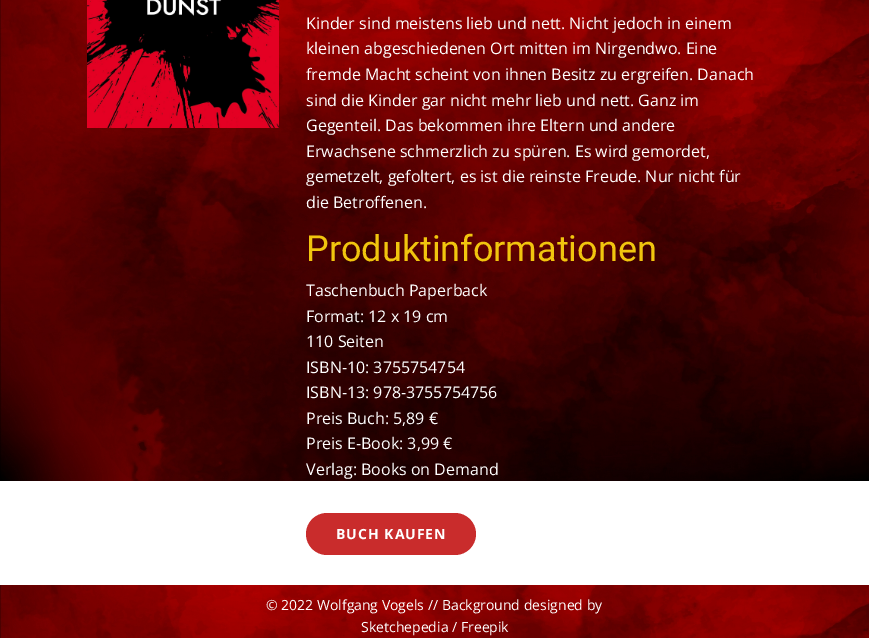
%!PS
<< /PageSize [869 638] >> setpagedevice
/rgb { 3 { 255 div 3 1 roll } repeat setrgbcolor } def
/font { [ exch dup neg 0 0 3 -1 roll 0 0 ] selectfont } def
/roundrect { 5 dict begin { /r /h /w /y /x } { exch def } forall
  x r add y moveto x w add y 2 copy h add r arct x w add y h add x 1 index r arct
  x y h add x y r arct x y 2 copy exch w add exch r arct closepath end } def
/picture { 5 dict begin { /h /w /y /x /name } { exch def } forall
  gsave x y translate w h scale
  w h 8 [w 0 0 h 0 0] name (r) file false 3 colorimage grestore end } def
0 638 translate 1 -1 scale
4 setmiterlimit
255 255 255 rgb
0 0 869 638 rectfill
(img/1.rgb) 0 0 869 481 picture
(img/2.rgb) 87 0 192 128 picture
201 44 44 rgb
306 513 170 42 21 roundrect fill
(img/3.rgb) 0 585 869 53 picture
/OpenSans-Regular 16 font
255 255 255 rgb
[
  [(Kinder sind meistens lieb und nett. Nicht jedoch in einem) 306 29]
  [(kleinen abgeschiedenen Ort mitten im Nirgendwo. Eine) 306 54]
  [(fremde Macht scheint von ihnen Besitz zu ergreifen. Danach) 306 80]
  [(sind die Kinder gar nicht mehr lieb und nett. Ganz im) 306 106]
  [(Gegenteil. Das bekommen ihre Eltern und andere) 306 131]
  [(Erwachsene schmerzlich zu spüren. Es wird gemordet,) 306 157]
  [(gemetzelt, gefoltert, es ist die reinste Freude. Nur nicht für) 306 182]
  [(die Betroffenen.) 306 208]
] { aload pop moveto show } forall
/Roboto-Regular 36 font
241 197 14 rgb
306 261 moveto (Produktinformationen) show
/OpenSans-Regular 16 font
255 255 255 rgb
[
  [(Taschenbuch Paperback) 306 296]
  [(Format: 12 x 19 cm) 306 322]
  [(110 Seiten) 306 347]
  [(ISBN-10: 3755754754) 306 373]
  [(ISBN-13: 978-3755754756) 306 398]
  [(Preis Buch: 5,89 €) 306 424]
  [(Preis E-Book: 3,99 €) 306 449]
  [(Verlag: Books on Demand) 306 475]
] { aload pop moveto show } forall
/OpenSans-Bold 14 font
336 539 moveto 1 0 (BUCH KAUFEN) ashow
/OpenSans-Regular 14 font
266 610 moveto (© 2022 Wolfgang Vogels // Background designed by) show
361 632 moveto (Sketchepedia / Freepik) show
showpage
